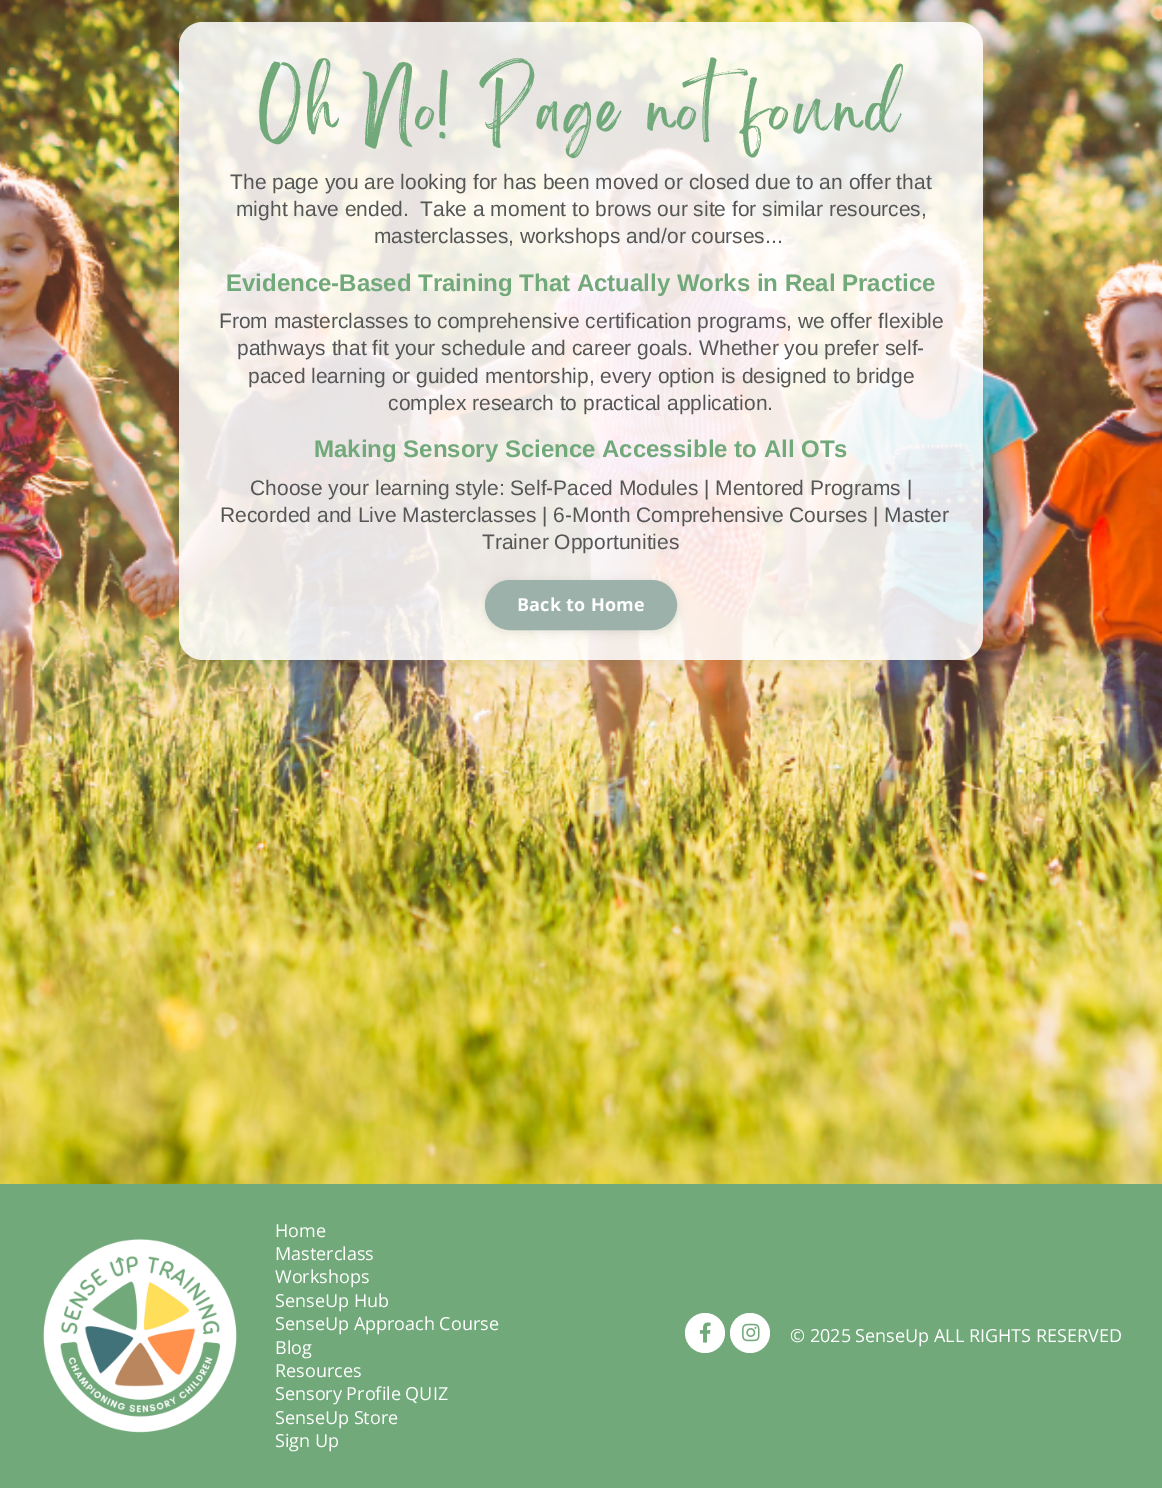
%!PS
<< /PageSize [1162 1488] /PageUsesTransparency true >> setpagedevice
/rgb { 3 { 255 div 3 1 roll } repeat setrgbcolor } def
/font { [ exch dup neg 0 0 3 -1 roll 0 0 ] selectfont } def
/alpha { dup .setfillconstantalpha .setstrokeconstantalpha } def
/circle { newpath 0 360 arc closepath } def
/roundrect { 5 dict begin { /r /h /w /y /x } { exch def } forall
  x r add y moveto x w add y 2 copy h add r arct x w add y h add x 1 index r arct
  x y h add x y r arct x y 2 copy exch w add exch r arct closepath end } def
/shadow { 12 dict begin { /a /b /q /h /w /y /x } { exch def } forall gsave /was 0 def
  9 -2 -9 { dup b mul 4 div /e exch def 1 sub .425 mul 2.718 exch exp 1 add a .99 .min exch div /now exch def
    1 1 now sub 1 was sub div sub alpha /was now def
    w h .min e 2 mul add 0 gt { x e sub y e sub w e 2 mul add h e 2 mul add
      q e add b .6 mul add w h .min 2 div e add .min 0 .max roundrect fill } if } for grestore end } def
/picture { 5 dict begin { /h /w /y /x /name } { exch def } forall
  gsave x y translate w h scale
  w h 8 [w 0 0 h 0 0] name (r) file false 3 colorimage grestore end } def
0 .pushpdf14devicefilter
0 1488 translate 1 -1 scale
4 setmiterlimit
255 255 255 rgb
0 0 1162 1488 rectfill
(img/1.rgb) 0 0 1162 1184 picture
gsave
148 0 moveto 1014 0 lineto 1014 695 lineto 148 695 lineto closepath 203 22 moveto 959 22 lineto 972.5 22 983 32.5 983 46 curveto 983 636 lineto 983 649.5 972.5 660 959 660 curveto 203 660 lineto 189.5 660 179 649.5 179 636 curveto 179 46 lineto 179 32.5 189.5 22 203 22 curveto closepath eoclip newpath
0 0 0 rgb
179 26 804 638 24 10 0.07 shadow
grestore
0.86 alpha
179 22 804 638 24 roundrect fill
1 alpha
0 0 0 rgb
485 582 192 50 25 5 0.1 shadow
156 177 169 rgb
486 581 190 48 24 roundrect gsave fill grestore
2 setlinewidth
stroke
113 169 122 rgb
0 1184 1162 304 rectfill
(img/2.rgb) 43 1239 194 194 picture
255 255 255 rgb
705 1333 20 circle fill
(img/3.rgb) 699 1322 12 21 picture
750 1333 20 circle fill
(img/4.rgb) 742 1323 18 19 picture
/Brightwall-Regular 56 font
113 169 122 rgb
258 141 moveto 3 0 (Oh No! Page not found) ashow
/LiberationSans-Regular 21 font
85 86 86 rgb
[
  [(The page you are looking for has been moved or closed due to an offer that) 230 189]
  [(might have ended.  Take a moment to brows our site for similar resources,) 236 216]
  [(masterclasses, workshops and/or courses...) 374 243]
] { aload pop moveto show } forall
/LiberationSans-Bold 24 font
113 169 122 rgb
226 291 moveto (Evidence-Based Training That Actually Works in Real Practice) show
/LiberationSans-Regular 21 font
85 86 86 rgb
[
  [(From masterclasses to comprehensive certification programs, we offer flexible) 219 328]
  [(pathways that fit your schedule and career goals. Whether you prefer self-) 237 355]
  [(paced learning or guided mentorship, every option is designed to bridge) 248 383]
  [(complex research to practical application.) 388 410]
] { aload pop moveto show } forall
/LiberationSans-Bold 24 font
113 169 122 rgb
314 457 moveto (Making Sensory Science Accessible to All OTs) show
/LiberationSans-Regular 21 font
85 86 86 rgb
[
  [(Choose your learning style: Self-Paced Modules | Mentored Programs |) 250 495]
  [(Recorded and Live Masterclasses | 6-Month Comprehensive Courses | Master) 220 522]
  [(Trainer Opportunities) 482 549]
] { aload pop moveto show } forall
/OpenSans-Bold 18 font
255 255 255 rgb
517 611 moveto 0.25 0 (Back to Home) ashow
/OpenSans-Regular 18 font
[
  [(Home) 275 1237]
  [(Masterclass) 275 1260]
  [(Workshops) 275 1283]
  [(SenseUp Hub) 275 1307]
  [(SenseUp Approach Course) 275 1330]
  [(Blog) 275 1354]
  [(Resources) 275 1377]
  [(Sensory Profile QUIZ) 275 1400]
  [(SenseUp Store) 275 1424]
  [(Sign Up) 275 1447]
  [(© 2025 SenseUp ALL RIGHTS RESERVED) 790 1342]
] { aload pop moveto show } forall
.poppdf14devicefilter showpage
